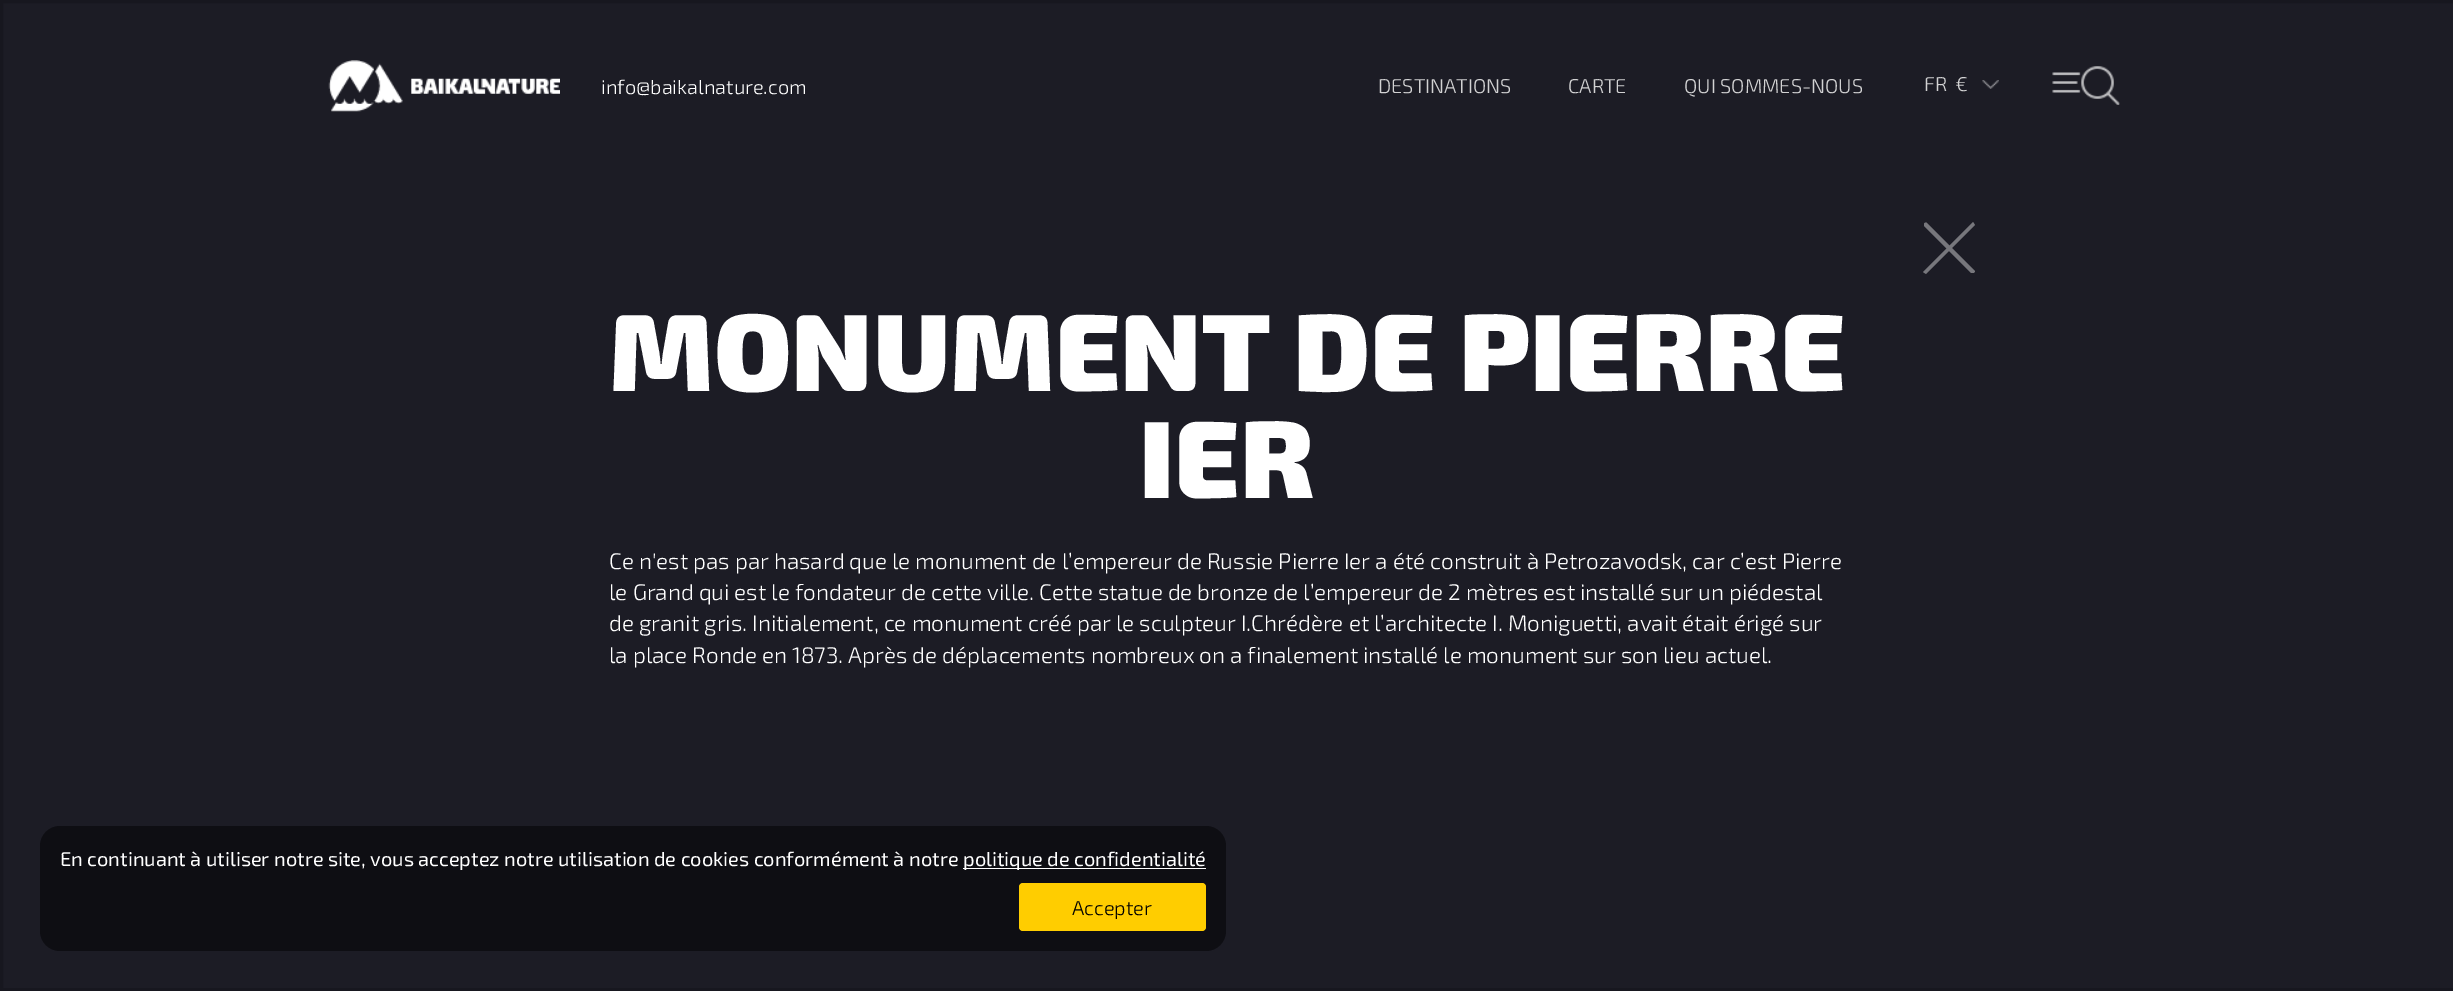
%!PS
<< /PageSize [2453 991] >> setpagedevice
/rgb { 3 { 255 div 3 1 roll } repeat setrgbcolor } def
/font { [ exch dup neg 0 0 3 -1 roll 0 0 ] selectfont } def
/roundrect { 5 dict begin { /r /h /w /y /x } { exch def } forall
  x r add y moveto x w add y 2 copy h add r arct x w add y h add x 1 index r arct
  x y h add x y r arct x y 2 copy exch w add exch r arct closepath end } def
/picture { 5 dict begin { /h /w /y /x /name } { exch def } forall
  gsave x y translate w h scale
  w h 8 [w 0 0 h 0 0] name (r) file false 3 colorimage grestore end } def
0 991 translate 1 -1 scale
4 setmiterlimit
28 28 37 rgb
0 0 2453 991 rectfill
23 23 31 rgb
3 setlinewidth
1.5 1.5 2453 988 rectstroke
(img/1.rgb) 328 60 232 52 picture
(img/2.rgb) 1982 80 17 9 picture
(img/3.rgb) 2052 66 68 39 picture
119 119 124 rgb
1927 223 moveto 1975 271 lineto 1975 272 1974 273 1973 273 curveto 1971 273 lineto 1924 226 lineto 1924 224 lineto 1924 223 1926 222 1927 223 curveto closepath fill
1923 272 moveto 1973 222 lineto 1975 225 lineto 1926 274 lineto closepath fill
14 14 19 rgb
40 826 1186 125 20 roundrect fill
255 255 255 rgb
963 868 243 1 rectfill
255 205 0 rgb
1019 883 187 48 4 roundrect fill
/Exo2-Light 20 font
255 255 255 rgb
601 94 moveto (info@baikalnature.com) show
210 210 211 rgb
[
  [(DESTINATIONS) 1378 93]
  [(CARTE) 1568 93]
  [(QUI SOMMES-NOUS) 1684 93]
  [(FR) 1924 91]
  [(€) 1955 91]
] { aload pop moveto show } forall
/Exo2-Black 110 font
255 255 255 rgb
609 391 moveto (MONUMENT DE PIERRE) show
1139 498 moveto (IER) show
/Exo2-Light 22.5 font
[
  [(Ce n'est pas par hasard que le monument de l’empereur de Russie Pierre Ier a été construit à Petrozavodsk, car c’est Pierre) 609 569]
  [(le Grand qui est le fondateur de cette ville. Cette statue de bronze de l’empereur de 2 mètres est installé sur un piédestal) 609 600]
  [(de granit gris. Initialement, ce monument créé par le sculpteur I.Chrédère et l’architecte I. Moniguetti, avait était érigé sur) 609 631]
  [(la place Ronde en 1873. Après de déplacements nombreux on a finalement installé le monument sur son lieu actuel.) 609 663]
] { aload pop moveto show } forall
/Exo2-Regular 20 font
60 866 moveto (En continuant à utiliser notre site, vous acceptez notre utilisation de cookies conformément à notre) show
963 866 moveto (politique de confidentialité) show
/Exo2-Light 20 font
0 0 0 rgb
1072 915 moveto (Accepter) show
showpage
